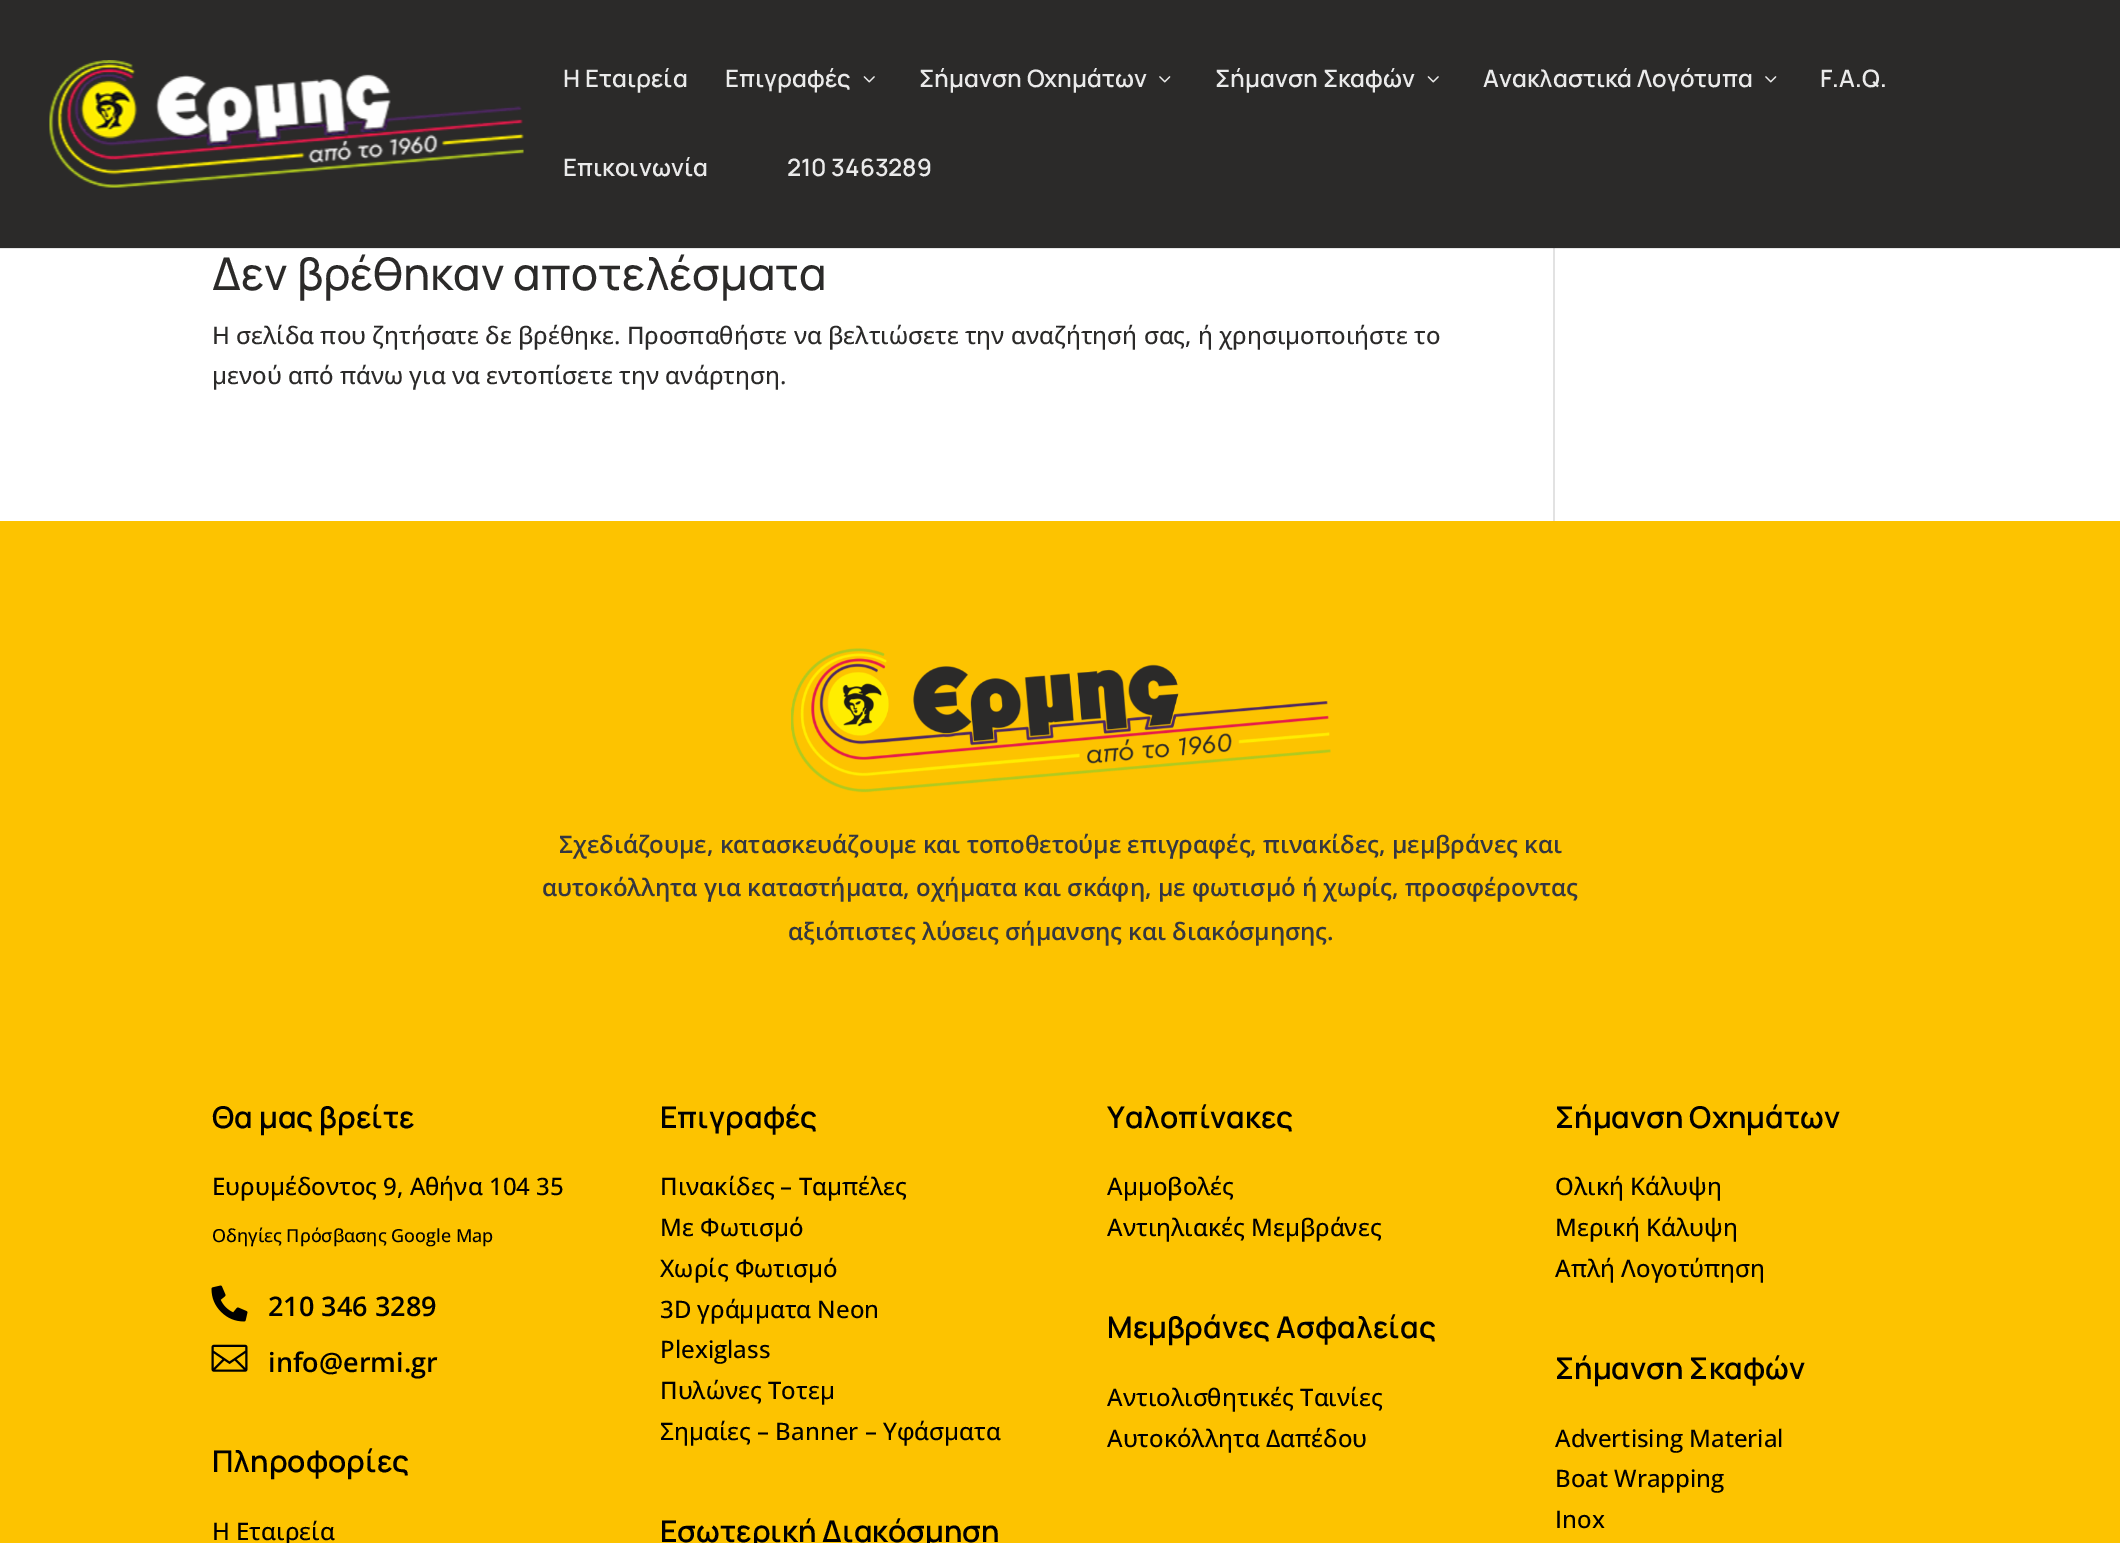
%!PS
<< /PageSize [2120 1543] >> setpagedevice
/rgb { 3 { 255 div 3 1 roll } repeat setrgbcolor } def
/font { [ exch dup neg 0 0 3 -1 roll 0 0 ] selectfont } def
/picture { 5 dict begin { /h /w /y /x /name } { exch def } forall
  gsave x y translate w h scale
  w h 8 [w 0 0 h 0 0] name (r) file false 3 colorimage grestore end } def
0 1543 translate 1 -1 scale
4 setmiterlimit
255 255 255 rgb
0 0 2120 1543 rectfill
230 230 230 rgb
0 248 2120 1 rectfill
43 42 41 rgb
0 0 2120 248 rectfill
(img/1.rgb) 49 60 475 128 picture
(img/2.rgb) 863 76 12 7 picture
(img/3.rgb) 1159 76 12 7 picture
(img/2.rgb) 1427 76 12 7 picture
(img/3.rgb) 1765 76 12 7 picture
[
  [1553 249 2 272 226 226 226]
  [1553 248 2 1 203 203 203]
  [0 521 2120 1022 253 195 0]
] { aload pop rgb rectfill } forall
(img/4.rgb) 791 648 540 145 picture
(img/5.rgb) 211 1285 37 37 picture
(img/6.rgb) 211 1344 37 28 picture
/Manrope-SemiBold 24 font
234 234 234 rgb
[
  [(Η Εταιρεία) 563 87]
  [(Επιγραφές) 725 87]
  [(Σήμανση Οχημάτων) 919 87]
  [(Σήμανση Σκαφών) 1215 87]
  [(Ανακλαστικά Λογότυπα) 1483 87]
  [(F.A.Q.) 1820 87]
  [(Επικοινωνία) 563 176]
  [(210 3463289) 787 176]
] { aload pop moveto show } forall
/Manrope-Medium 45 font
43 42 41 rgb
212 290 moveto (Δεν βρέθηκαν αποτελέσματα) show
/OpenSans-Medium 24 font
212 344 moveto (Η σελίδα που ζητήσατε δε βρέθηκε. Προσπαθήστε να βελτιώσετε την αναζήτησή σας, ή χρησιμοποιήστε το) show
212 384 moveto (μενού από πάνω για να εντοπίσετε την ανάρτηση.) show
/OpenSans-SemiBold 24 font
53 55 64 rgb
[
  [(Σχεδιάζουμε, κατασκευάζουμε και τοποθετούμε επιγραφές, πινακίδες, μεμβράνες και) 559 853]
  [(αυτοκόλλητα για καταστήματα, οχήματα και σκάφη, με φωτισμό ή χωρίς, προσφέροντας) 542 896]
  [(αξιόπιστες λύσεις σήμανσης και διακόσμησης.) 788 940]
] { aload pop moveto show } forall
/Manrope-SemiBold 30 font
0 0 0 rgb
212 1128 moveto (Θα μας βρείτε) show
/OpenSans-Medium 24 font
212 1195 moveto (Ευρυμέδοντος 9, Αθήνα 104 35) show
/OpenSans-Medium 18 font
212 1242 moveto (Οδηγίες Πρόσβασης Google Map) show
/OpenSans-SemiBold 27 font
268 1316 moveto (210 346 3289) show
268 1372 moveto (info@ermi.gr) show
/Manrope-SemiBold 30 font
212 1472 moveto (Πληροφορίες) show
/OpenSans-Medium 24 font
212 1540 moveto (Η Εταιρεία) show
/Manrope-SemiBold 30 font
660 1128 moveto (Επιγραφές) show
/OpenSans-Medium 24 font
[
  [(Πινακίδες – Ταμπέλες) 660 1195]
  [(Με Φωτισμό) 660 1236]
  [(Χωρίς Φωτισμό) 660 1277]
  [(3D γράμματα Neon) 660 1318]
  [(Plexiglass) 660 1358]
  [(Πυλώνες Τοτεμ) 660 1399]
  [(Σημαίες – Banner – Υφάσματα) 660 1440]
] { aload pop moveto show } forall
/Manrope-SemiBold 30 font
660 1542 moveto (Εσωτερική Διακόσμηση) show
1107 1128 moveto (Υαλοπίνακες) show
/OpenSans-Medium 24 font
1107 1195 moveto (Αμμοβολές) show
1107 1236 moveto (Αντιηλιακές Μεμβράνες) show
/Manrope-SemiBold 30 font
1107 1338 moveto (Μεμβράνες Ασφαλείας) show
/OpenSans-Medium 24 font
1107 1406 moveto (Αντιολισθητικές Ταινίες) show
1107 1447 moveto (Αυτοκόλλητα Δαπέδου) show
/Manrope-SemiBold 30 font
1555 1128 moveto (Σήμανση Οχημάτων) show
/OpenSans-Medium 24 font
[
  [(Ολική Κάλυψη) 1555 1195]
  [(Μερική Κάλυψη) 1555 1236]
  [(Απλή Λογοτύπηση) 1555 1277]
] { aload pop moveto show } forall
/Manrope-SemiBold 30 font
1555 1379 moveto (Σήμανση Σκαφών) show
/OpenSans-Medium 24 font
[
  [(Advertising Material) 1555 1447]
  [(Boat Wrapping) 1555 1487]
  [(Inox) 1555 1528]
] { aload pop moveto show } forall
showpage
